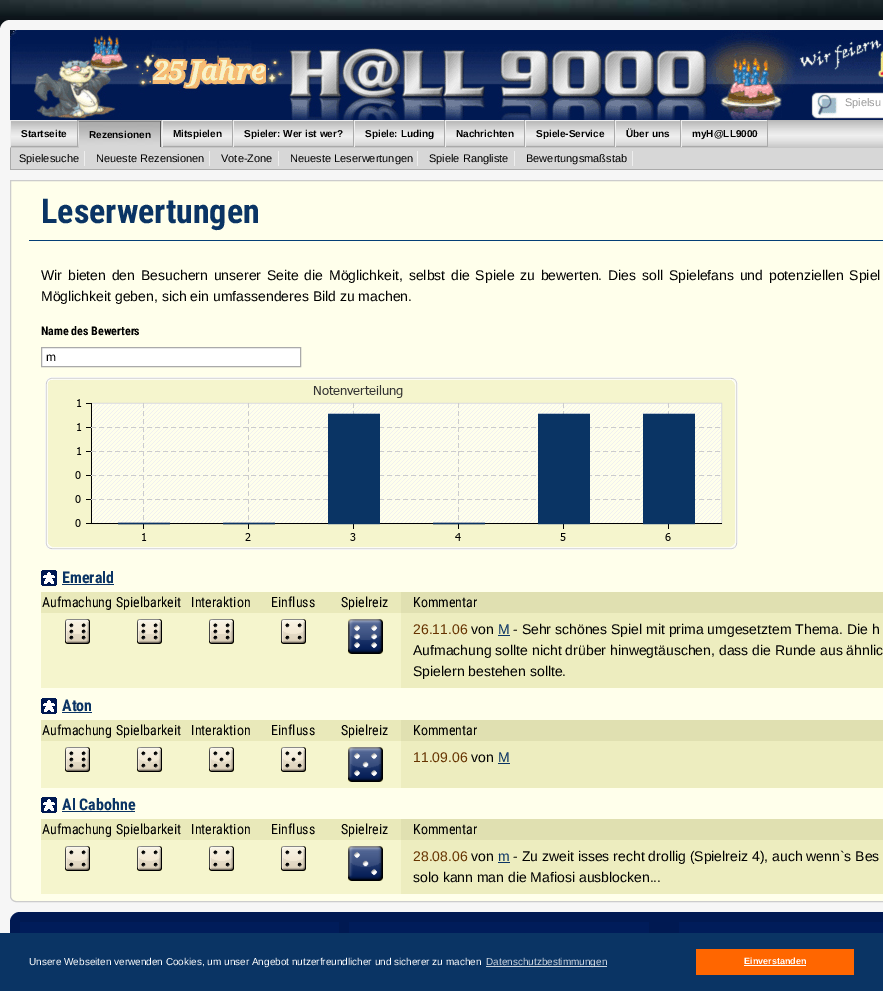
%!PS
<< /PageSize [883 991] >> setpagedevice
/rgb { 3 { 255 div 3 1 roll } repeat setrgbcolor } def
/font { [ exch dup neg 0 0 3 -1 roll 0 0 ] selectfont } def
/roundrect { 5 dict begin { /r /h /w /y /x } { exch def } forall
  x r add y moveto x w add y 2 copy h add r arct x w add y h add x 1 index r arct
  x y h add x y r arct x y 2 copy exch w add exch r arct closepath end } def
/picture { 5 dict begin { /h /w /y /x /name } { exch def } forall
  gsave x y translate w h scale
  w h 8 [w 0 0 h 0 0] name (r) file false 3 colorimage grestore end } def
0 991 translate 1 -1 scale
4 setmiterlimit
255 255 255 rgb
0 0 883 991 rectfill
(img/1.rgb) 0 0 883 30 picture
246 246 246 rgb
0 20 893 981 10 roundrect fill
(img/2.rgb) 10 30 873 90 picture
255 255 255 rgb
840 96 1 11 rectfill
(img/3.rgb) 10 120 873 28 picture
(img/4.rgb) 11 122 66 23 picture
[
  [10 120 68 1 238 238 238]
  [77 120 1 27 170 170 170]
  [10 146 68 1 170 170 170]
  [10 120 1 27 238 238 238]
] { aload pop rgb rectfill } forall
(img/5.rgb) 79 122 81 25 picture
[
  [79 121 82 1 136 136 136]
  [160 121 1 27 85 85 85]
  [79 147 82 1 215 215 215]
] { aload pop rgb rectfill } forall
(img/6.rgb) 163 122 69 23 picture
[
  [162 120 606 1 238 238 238]
  [232 120 1 27 170 170 170]
  [162 146 71 1 170 170 170]
  [162 120 1 27 238 238 238]
] { aload pop rgb rectfill } forall
(img/7.rgb) 234 122 119 23 picture
[
  [353 120 1 27 170 170 170]
  [233 146 121 1 170 170 170]
  [233 120 1 27 238 238 238]
] { aload pop rgb rectfill } forall
(img/8.rgb) 355 122 89 23 picture
[
  [444 120 1 27 170 170 170]
  [354 146 91 1 170 170 170]
  [354 120 1 27 238 238 238]
] { aload pop rgb rectfill } forall
(img/9.rgb) 446 122 78 23 picture
[
  [524 120 1 27 170 170 170]
  [445 146 80 1 170 170 170]
  [445 120 1 27 238 238 238]
] { aload pop rgb rectfill } forall
(img/10.rgb) 526 122 88 23 picture
[
  [614 120 1 27 170 170 170]
  [525 146 90 1 170 170 170]
  [525 120 1 27 238 238 238]
] { aload pop rgb rectfill } forall
(img/11.rgb) 616 122 64 23 picture
[
  [680 120 1 27 170 170 170]
  [615 146 66 1 170 170 170]
  [615 120 1 27 238 238 238]
] { aload pop rgb rectfill } forall
(img/12.rgb) 682 122 85 23 picture
[
  [767 120 1 27 170 170 170]
  [681 146 87 1 170 170 170]
  [681 120 1 27 238 238 238]
  [11 148 872 21 215 215 215]
  [10 169 873 1 170 170 170]
  [10 148 1 22 170 170 170]
  [84 151 1 15 238 238 238]
  [209 151 1 15 238 238 238]
  [278 151 1 15 238 238 238]
  [417 151 1 15 238 238 238]
  [514 151 1 15 238 238 238]
  [632 151 1 15 238 238 238]
] { aload pop rgb rectfill } forall
255 255 235 rgb
10.5 180.5 moveto 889.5 180.5 lineto 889.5 896 lineto 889.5 899 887 901.5 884 901.5 curveto 16 901.5 lineto 13 901.5 10.5 899 10.5 896 curveto closepath gsave fill grestore
204 204 204 rgb
stroke
4 63 118 rgb
29 240 854 1 rectfill
255 255 255 rgb
41.5 347.5 moveto 300.5 347.5 lineto 300.5 366.5 lineto 41.5 366.5 lineto closepath gsave fill grestore
170 170 170 rgb
stroke
(img/13.rgb) 45 377 693 173 picture
(img/14.rgb) 41 570 16 16 picture
[
  [62 584 52 1 10 52 100]
  [41 592 360 21 233 233 186]
  [401 592 482 21 224 224 177]
  [41 613 360 75 245 245 205]
] { aload pop rgb rectfill } forall
(img/15.rgb) 65 619 25 25 picture
(img/16.rgb) 137 619 25 25 picture
(img/15.rgb) 209 619 25 25 picture
(img/17.rgb) 281 619 25 25 picture
(img/18.rgb) 348 619 35 35 picture
237 237 191 rgb
401 613 482 75 rectfill
10 52 100 rgb
498 635 12 1 rectfill
(img/14.rgb) 41 698 16 16 picture
[
  [62 712 30 1 10 52 100]
  [41 720 360 21 233 233 186]
  [401 720 482 21 224 224 177]
  [41 741 360 47 245 245 205]
] { aload pop rgb rectfill } forall
(img/15.rgb) 65 747 25 25 picture
(img/19.rgb) 137 747 25 25 picture
(img/20.rgb) 209 747 25 25 picture
(img/19.rgb) 281 747 25 25 picture
(img/21.rgb) 348 747 35 35 picture
237 237 191 rgb
401 741 482 47 rectfill
10 52 100 rgb
498 763 12 1 rectfill
(img/14.rgb) 41 797 16 16 picture
[
  [62 811 73 1 10 52 100]
  [41 819 360 21 233 233 186]
  [401 819 482 21 224 224 177]
  [41 840 360 54 245 245 205]
] { aload pop rgb rectfill } forall
(img/22.rgb) 65 846 25 25 picture
(img/17.rgb) 137 846 25 25 picture
(img/22.rgb) 209 846 25 25 picture
(img/17.rgb) 281 846 25 25 picture
(img/23.rgb) 348 846 35 35 picture
237 237 191 rgb
401 840 482 54 rectfill
10 52 100 rgb
498 862 12 1 rectfill
0 25 82 rgb
10 912 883 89 10 roundrect fill
[
  [20 922 319 11 0 28 90]
  [349 922 300 11 0 28 90]
  [679 922 204 11 0 28 90]
  [0 933 883 58 10 52 100]
  [486 966 121 1 206 214 224]
  [696 949 158 26 255 102 0]
  [744 965 62 1 255 255 255]
] { aload pop rgb rectfill } forall
/LiberationSans-Regular 11 font
153 153 153 rgb
845 106 moveto (Spielsu) show
/LiberationSans-Bold 10 font
0 0 0 rgb
[
  [(Startseite) 21 137]
  [(Rezensionen) 89 138]
  [(Mitspielen) 173 137]
  [(Spieler: Wer ist wer?) 244 137]
  [(Spiele: Luding) 365 137]
  [(Nachrichten) 456 137]
  [(Spiele-Service) 536 137]
  [(Über uns) 626 137]
  [(myH@LL9000) 692 137]
] { aload pop moveto show } forall
/LiberationSans-Regular 11 font
[
  [(Spielesuche) 19 162]
  [(Neueste Rezensionen) 96 162]
  [(Vote-Zone) 221 162]
  [(Neueste Leserwertungen) 290 162]
  [(Spiele Rangliste) 429 162]
  [(Bewertungsmaßstab) 526 162]
] { aload pop moveto show } forall
/RobotoCondensed-Bold 34 font
10 52 100 rgb
41 223 moveto (Leserwertungen) show
/Arimo-Regular 14 font
0 0 0 rgb
41 280 moveto 1.9 0 32 (Wir bieten den Besuchern unserer Seite die Möglichkeit, selbst die Spiele zu bewerten. Dies soll Spielefans und potenziellen Spiel) widthshow
41 301 moveto (Möglichkeit geben, sich ein umfassenderes Bild zu machen.) show
/RobotoCondensed-Bold 12 font
41 335 moveto (Name des Bewerters) show
/LiberationSans-Regular 12 font
46 361 moveto (m) show
/RobotoCondensed-Bold 16 font
10 52 100 rgb
62 583 moveto (Emerald) show
/RobotoCondensed-Regular 14 font
0 0 0 rgb
[
  [(Aufmachung) 42 607]
  [(Spielbarkeit) 116 607]
  [(Interaktion) 191 607]
  [(Einfluss) 271 607]
  [(Spielreiz) 341 607]
  [(Kommentar) 413 607]
] { aload pop moveto show } forall
/Arimo-Regular 14 font
102 51 0 rgb
413 634 moveto (26.11.06) show
0 0 0 rgb
471 634 moveto (von) show
10 52 100 rgb
498 634 moveto (M) show
0 0 0 rgb
[
  [(- Sehr schönes Spiel mit prima umgesetztem Thema. Die h) 513 634]
  [(Aufmachung sollte nicht drüber hinwegtäuschen, dass die Runde aus ähnlic) 413 655]
  [(Spielern bestehen sollte.) 413 676]
] { aload pop moveto show } forall
/RobotoCondensed-Bold 16 font
10 52 100 rgb
62 711 moveto (Aton) show
/RobotoCondensed-Regular 14 font
0 0 0 rgb
[
  [(Aufmachung) 42 735]
  [(Spielbarkeit) 116 735]
  [(Interaktion) 191 735]
  [(Einfluss) 271 735]
  [(Spielreiz) 341 735]
  [(Kommentar) 413 735]
] { aload pop moveto show } forall
/Arimo-Regular 14 font
102 51 0 rgb
413 762 moveto (11.09.06) show
0 0 0 rgb
471 762 moveto (von) show
10 52 100 rgb
498 762 moveto (M) show
/RobotoCondensed-Bold 16 font
62 810 moveto (Al Cabohne) show
/RobotoCondensed-Regular 14 font
0 0 0 rgb
[
  [(Aufmachung) 42 834]
  [(Spielbarkeit) 116 834]
  [(Interaktion) 191 834]
  [(Einfluss) 271 834]
  [(Spielreiz) 341 834]
  [(Kommentar) 413 834]
] { aload pop moveto show } forall
/Arimo-Regular 14 font
102 51 0 rgb
413 861 moveto (28.08.06) show
0 0 0 rgb
471 861 moveto (von) show
10 52 100 rgb
498 861 moveto (m) show
0 0 0 rgb
513 861 moveto (- Zu zweit isses recht drollig \(Spielreiz 4\), auch wenn`s Bes) show
413 882 moveto (solo kann man die Mafiosi ausblocken...) show
/LiberationSans-Regular 10 font
255 255 255 rgb
29 965 moveto (Unsere Webseiten verwenden Cookies, um unser Angebot nutzerfreundlicher und sicherer zu machen) show
206 214 224 rgb
486 965 moveto (Datenschutzbestimmungen) show
/LiberationSans-Bold 9 font
255 255 255 rgb
744 964 moveto (Einverstanden) show
showpage
